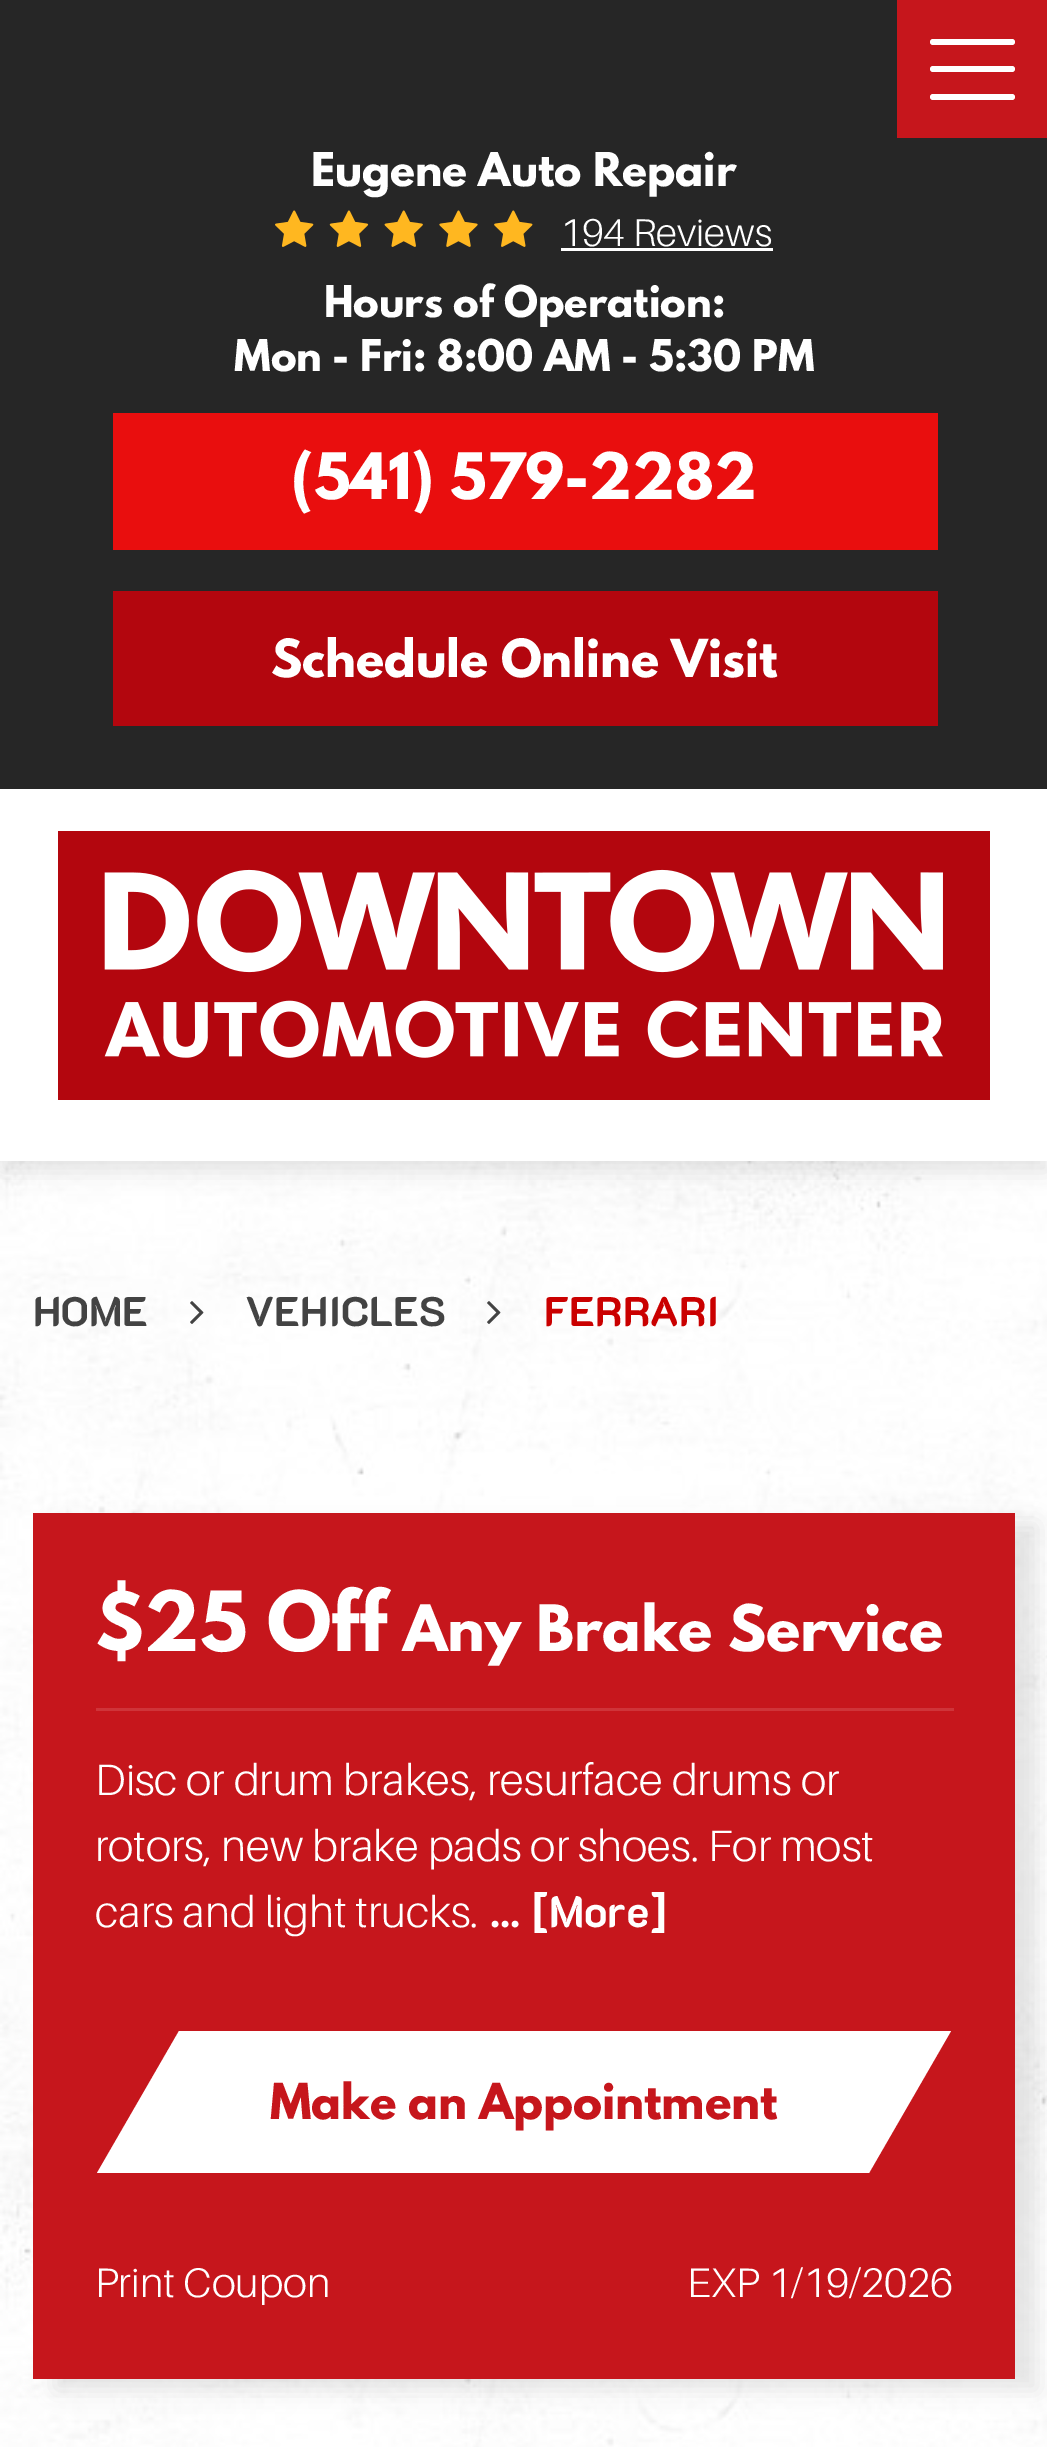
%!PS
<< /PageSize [1047 2447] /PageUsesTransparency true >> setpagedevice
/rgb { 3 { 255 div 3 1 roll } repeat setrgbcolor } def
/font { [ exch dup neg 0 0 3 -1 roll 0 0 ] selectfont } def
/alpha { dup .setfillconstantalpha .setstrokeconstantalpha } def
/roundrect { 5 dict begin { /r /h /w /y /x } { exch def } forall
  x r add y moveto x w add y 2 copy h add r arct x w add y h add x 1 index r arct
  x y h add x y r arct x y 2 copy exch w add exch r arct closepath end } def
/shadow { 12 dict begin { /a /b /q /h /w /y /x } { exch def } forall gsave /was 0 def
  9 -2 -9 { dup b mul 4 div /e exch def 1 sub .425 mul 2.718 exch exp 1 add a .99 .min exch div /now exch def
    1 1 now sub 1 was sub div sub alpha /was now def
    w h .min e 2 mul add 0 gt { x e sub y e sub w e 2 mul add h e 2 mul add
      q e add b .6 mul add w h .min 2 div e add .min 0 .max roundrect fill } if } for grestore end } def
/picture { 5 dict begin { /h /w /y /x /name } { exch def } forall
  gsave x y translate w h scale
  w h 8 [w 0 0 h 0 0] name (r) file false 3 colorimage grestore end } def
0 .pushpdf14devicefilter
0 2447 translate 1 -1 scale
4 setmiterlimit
255 255 255 rgb
0 0 1047 2447 rectfill
(img/1.rgb) 0 1161 1047 1286 picture
38 38 38 rgb
0 0 1047 789 rectfill
0 0 0 rgb
0 800 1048 372 0 10.5 0.1 shadow
255 255 255 rgb
0 789 1047 372 rectfill
198 22 28 rgb
897 0 150 138 rectfill
255 255 255 rgb
930 66 85 6 3 roundrect fill
930 39 85 6 3 roundrect fill
930 94 85 6 3 roundrect fill
(img/2.rgb) 58 831 932 269 picture
(img/3.rgb) 275 210 258 37 picture
[
  [561 248 212 3 255 255 255]
  [113 413 825 137 233 14 14]
  [113 591 825 135 179 6 14]
] { aload pop rgb rectfill } forall
(img/4.rgb) 190 1301 14 23 picture
(img/5.rgb) 487 1301 14 23 picture
0 0 0 rgb
55 1524 982 866 0 10.5 0.1 shadow
198 22 28 rgb
33 1513 982 866 rectfill
207 52 57 rgb
96 1708 858 3 rectfill
255 255 255 rgb
179 2031 moveto 951 2031 lineto 869 2173 lineto 97 2173 lineto closepath fill
/LeagueSpartan-Bold 41.25 font
311 186 moveto (Eugene Auto Repair) show
/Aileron-Light 38.7 font
560 246 moveto (194 Reviews) show
/LeagueSpartan-Bold 38.7 font
324 317 moveto (Hours of Operation:) show
234 371 moveto (Mon - Fri: 8:00 AM - 5:30 PM) show
/LeagueSpartan-Bold 56.75 font
291 499 moveto (\(541\) 579-2282) show
/LeagueSpartan-Bold 46.5 font
271 677 moveto (Schedule Online Visit) show
/K2D-Bold 41.25 font
67 67 67 rgb
33 1326 moveto (HOME) show
245 1326 moveto (VEHICLES) show
202 0 0 rgb
544 1326 moveto (FERRARI) show
/LeagueSpartan-Bold 73.5 font
255 255 255 rgb
95 1651 moveto ($25 Off) show
/LeagueSpartan-Bold 56.75 font
403 1651 moveto (Any Brake Service) show
/Aileron-Light 43.8 font
[
  [(Disc or drum brakes, resurface drums or) 95 1795]
  [(rotors, new brake pads or shoes. For most) 95 1861]
  [(cars and light trucks.) 95 1927]
] { aload pop moveto show } forall
/K2D-Bold 43.8 font
490 1927 moveto (... [More]) show
/LeagueSpartan-Bold 43.8 font
198 22 28 rgb
270 2119 moveto (Make an Appointment) show
/Aileron-Light 41.25 font
255 255 255 rgb
95 2297 moveto (Print Coupon) show
687 2297 moveto (EXP 1/19/2026) show
.poppdf14devicefilter showpage
